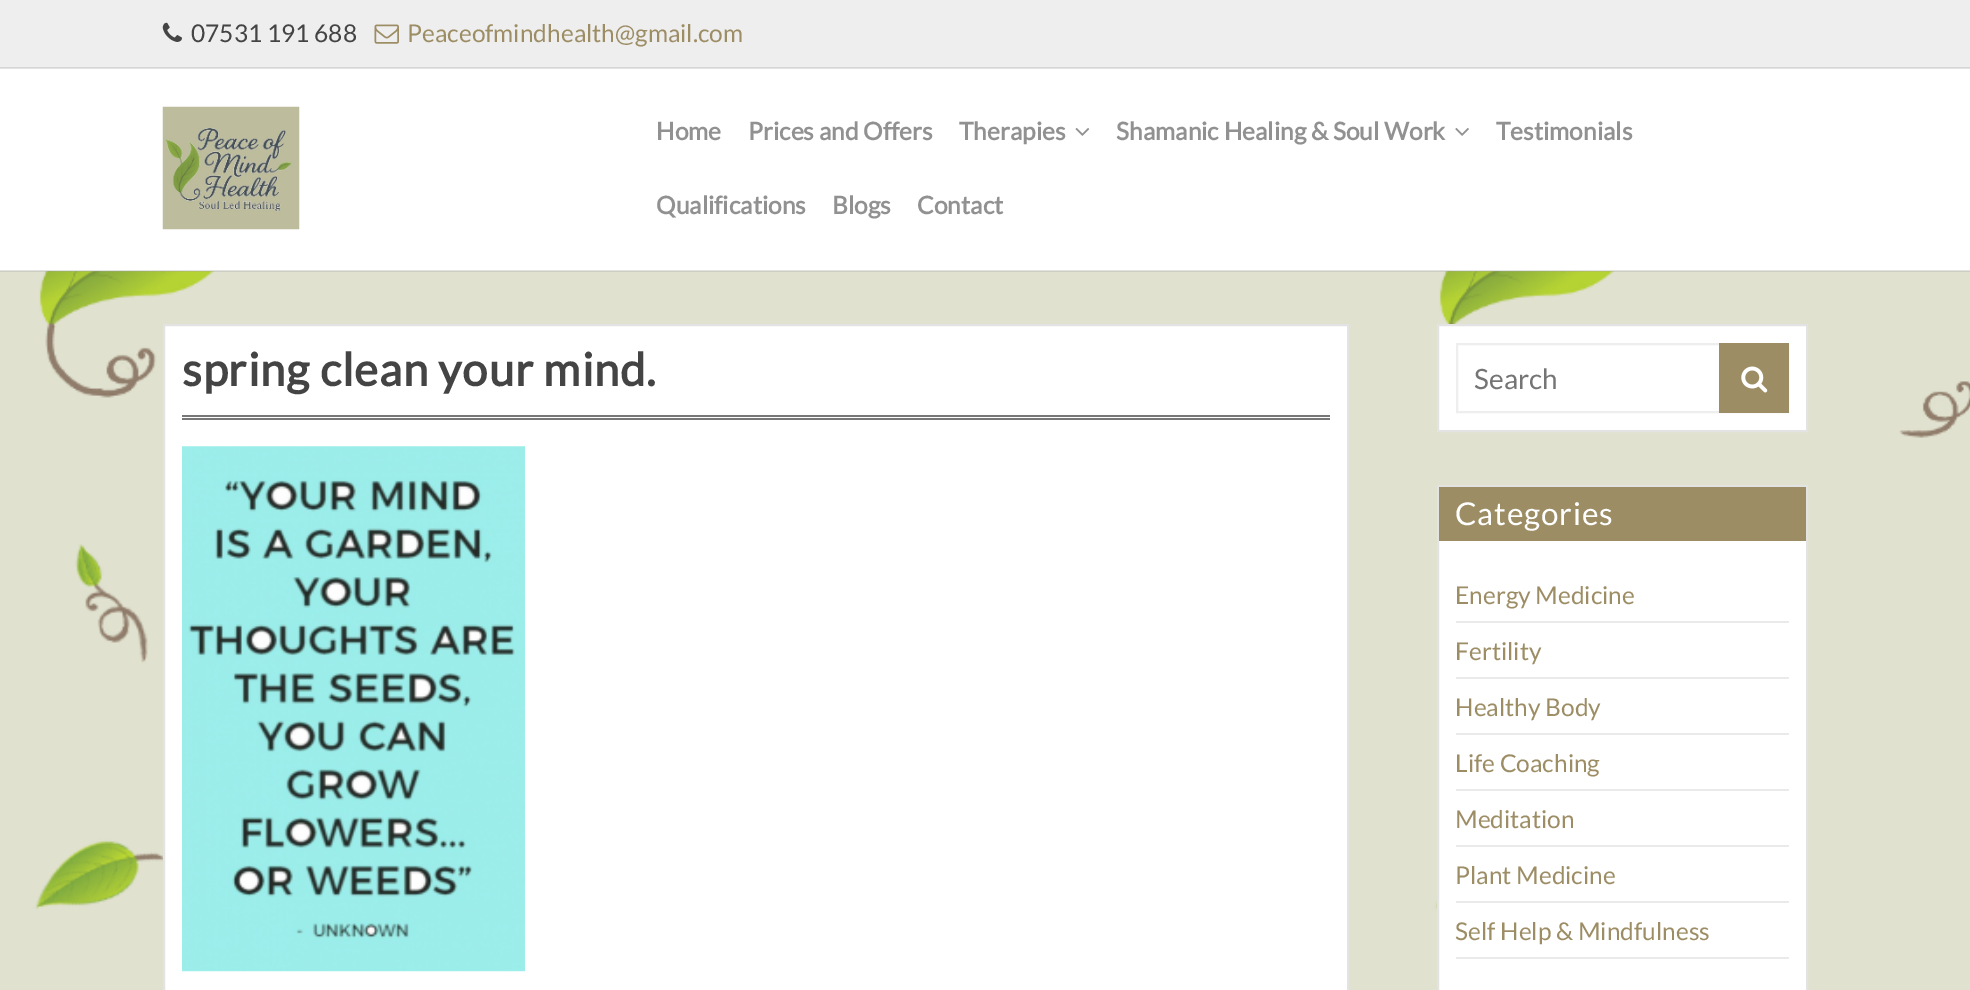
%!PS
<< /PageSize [1970 990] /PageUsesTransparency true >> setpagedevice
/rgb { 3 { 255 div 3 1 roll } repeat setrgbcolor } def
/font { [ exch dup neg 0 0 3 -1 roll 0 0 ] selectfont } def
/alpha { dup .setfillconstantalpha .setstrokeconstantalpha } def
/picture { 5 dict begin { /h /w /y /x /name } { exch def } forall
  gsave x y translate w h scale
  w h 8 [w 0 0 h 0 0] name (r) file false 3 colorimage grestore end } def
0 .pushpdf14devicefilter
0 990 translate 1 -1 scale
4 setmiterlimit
255 255 255 rgb
0 0 1970 990 rectfill
(img/1.rgb) 0 271 1970 719 picture
0.3 alpha
[
  [0 270 1970 2 160 160 160]
] { aload pop rgb rectfill } forall
1 alpha
[
  [0 0 1970 68 238 238 238]
] { aload pop rgb rectfill } forall
0.3 alpha
[
  [0 67 1970 2 160 160 160]
] { aload pop rgb rectfill } forall
1 alpha
(img/2.rgb) 162 22 20 20 picture
(img/3.rgb) 374 24 25 20 picture
(img/4.rgb) 162 106 138 124 picture
(img/5.rgb) 1075 128 15 8 picture
(img/6.rgb) 1455 128 14 8 picture
255 255 255 rgb
164 325 moveto 1348 325 lineto 1348 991 lineto 164 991 lineto closepath gsave fill grestore
227 227 227 rgb
2 setlinewidth
stroke
119 119 119 rgb
182 415 1148 2 rectfill
182 418 1148 2 rectfill
(img/7.rgb) 182 446 343 526 picture
255 255 255 rgb
1438 325 moveto 1807 325 lineto 1807 431 lineto 1438 431 lineto closepath gsave fill grestore
227 227 227 rgb
stroke
238 238 238 rgb
1457 344 331 68 rectstroke
157 141 101 rgb
1719 343 70 70 rectfill
(img/8.rgb) 1741 366 27 27 picture
255 255 255 rgb
1439 541 367 449 rectfill
227 227 227 rgb
1438 486 369 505 rectstroke
[
  [1439 487 367 54 157 141 101]
  [1456 621 333 2 234 234 234]
  [1456 677 333 2 234 234 234]
  [1456 733 333 2 234 234 234]
  [1456 789 333 2 234 234 234]
  [1456 845 333 2 234 234 234]
  [1456 901 333 2 234 234 234]
  [1456 957 333 2 234 234 234]
] { aload pop rgb rectfill } forall
/Lato-Regular 24.5 font
68 68 68 rgb
191 42 moveto (07531 191 688) show
157 141 101 rgb
407 42 moveto (Peaceofmindhealth@gmail.com) show
/Lato-Bold 24.5 font
145 145 145 rgb
[
  [(Home) 656 140]
  [(Prices and Offers) 748 140]
  [(Therapies) 959 140]
  [(Shamanic Healing & Soul Work) 1116 140]
  [(Testimonials) 1496 140]
  [(Qualifications) 656 214]
  [(Blogs) 832 214]
  [(Contact) 917 214]
] { aload pop moveto show } forall
/Lato-Bold 45.5 font
68 68 68 rgb
182 386 moveto 0.8 0 (spring clean your mind.) ashow
/Lato-Regular 28 font
117 117 117 rgb
1474 389 moveto (Search) show
/Lato-Regular 31.5 font
255 255 255 rgb
1455 525 moveto 0.8 0 (Categories) ashow
/Lato-Regular 24.5 font
157 141 101 rgb
[
  [(Energy Medicine) 1455 604]
  [(Fertility) 1455 660]
  [(Healthy Body) 1455 716]
  [(Life Coaching) 1455 772]
  [(Meditation) 1455 828]
  [(Plant Medicine) 1455 884]
  [(Self Help & Mindfulness) 1455 940]
] { aload pop moveto show } forall
.poppdf14devicefilter showpage
